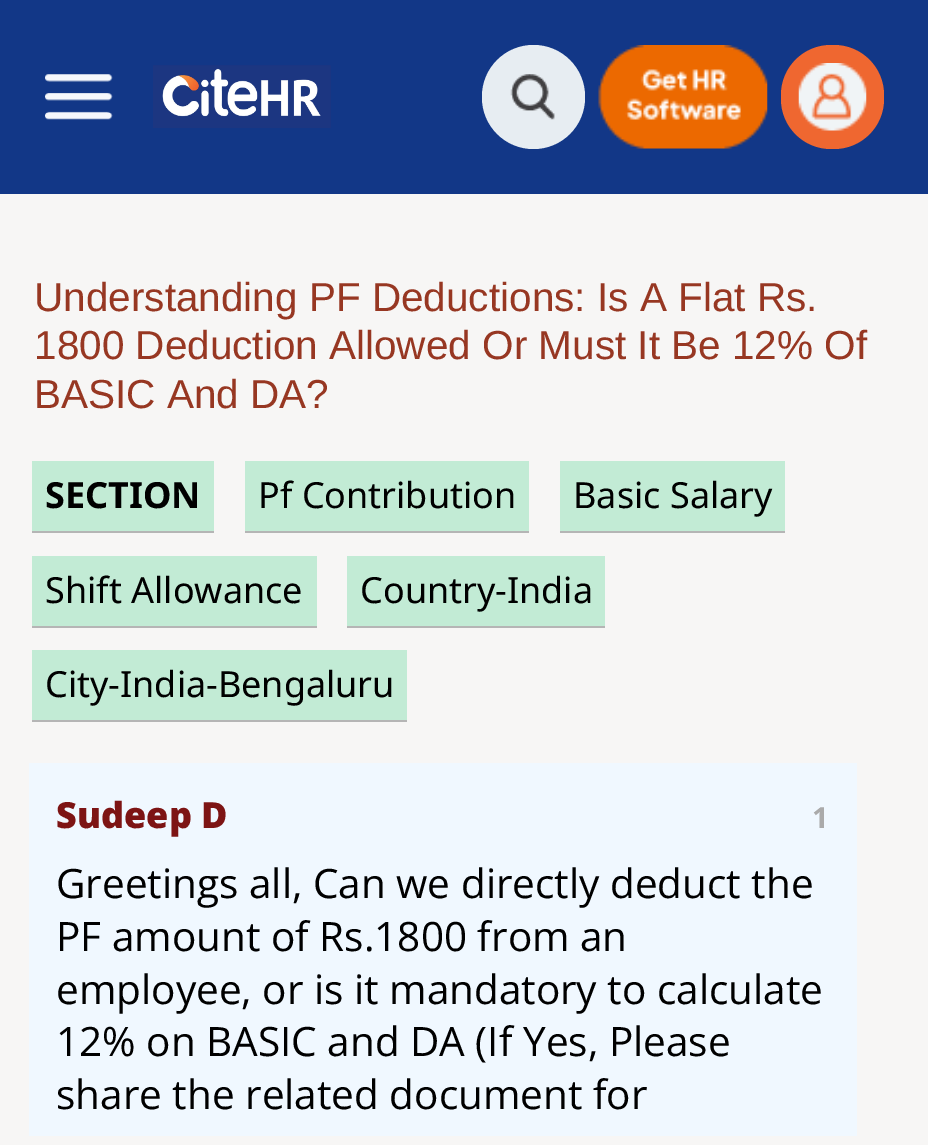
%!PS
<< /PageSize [928 1145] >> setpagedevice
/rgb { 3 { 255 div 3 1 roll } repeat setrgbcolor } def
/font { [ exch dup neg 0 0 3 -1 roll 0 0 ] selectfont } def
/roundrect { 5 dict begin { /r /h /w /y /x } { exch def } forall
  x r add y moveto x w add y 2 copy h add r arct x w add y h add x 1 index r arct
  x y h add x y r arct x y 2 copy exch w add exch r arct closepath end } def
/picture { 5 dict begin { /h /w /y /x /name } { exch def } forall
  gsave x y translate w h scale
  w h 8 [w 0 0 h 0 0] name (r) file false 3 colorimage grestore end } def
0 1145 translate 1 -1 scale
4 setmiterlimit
247 246 245 rgb
0 0 928 1145 rectfill
18 55 135 rgb
0 0 928 194 rectfill
(img/1.rgb) 45 74 68 46 picture
(img/2.rgb) 153 65 178 63 picture
231 237 242 rgb
482 45 103 104 51.5 roundrect fill
(img/3.rgb) 510 74 45 46 picture
(img/4.rgb) 598 45 170 104 picture
239 103 48 rgb
781 45 103 104 50 roundrect fill
(img/5.rgb) 798 63 69 68 picture
[
  [245 461 284 70 194 235 213]
  [245 531 284 2 181 181 181]
  [560 461 225 70 194 235 213]
  [560 531 225 2 181 181 181]
  [32 556 285 70 194 235 213]
  [32 626 285 2 181 181 181]
  [347 556 258 70 194 235 213]
  [347 626 258 2 181 181 181]
  [32 650 375 70 194 235 213]
  [32 720 375 2 181 181 181]
  [32 461 182 70 194 235 213]
  [32 531 182 2 181 181 181]
  [29 763 828 373 240 248 255]
] { aload pop rgb rectfill } forall
/LiberationSans-Regular 40.5 font
151 55 34 rgb
[
  [(Understanding PF Deductions: Is A Flat Rs.) 34 311]
  [(1800 Deduction Allowed Or Must It Be 12% Of) 34 359]
  [(BASIC And DA?) 34 408]
] { aload pop moveto show } forall
/NotoSans-Regular 36 font
0 0 0 rgb
[
  [(Pf Contribution) 258 508]
  [(Basic Salary) 573 508]
  [(Shift Allowance) 45 603]
  [(Country-India) 360 603]
  [(City-India-Bengaluru) 45 697]
] { aload pop moveto show } forall
/NotoSans-Bold 36 font
45 508 moveto (SECTION) show
/OpenSans-ExtraBold 36 font
125 20 20 rgb
56 828 moveto (Sudeep D) show
/OpenSans-Bold 29 font
170 170 170 rgb
812 828 moveto (1) show
/OpenSans-Regular 40.5 font
0 0 0 rgb
[
  [(Greetings all, Can we directly deduct the) 56 898]
  [(PF amount of Rs.1800 from an) 56 951]
  [(employee, or is it mandatory to calculate) 56 1004]
  [(12% on BASIC and DA \(If Yes, Please) 56 1056]
  [(share the related document for) 56 1109]
] { aload pop moveto show } forall
showpage
